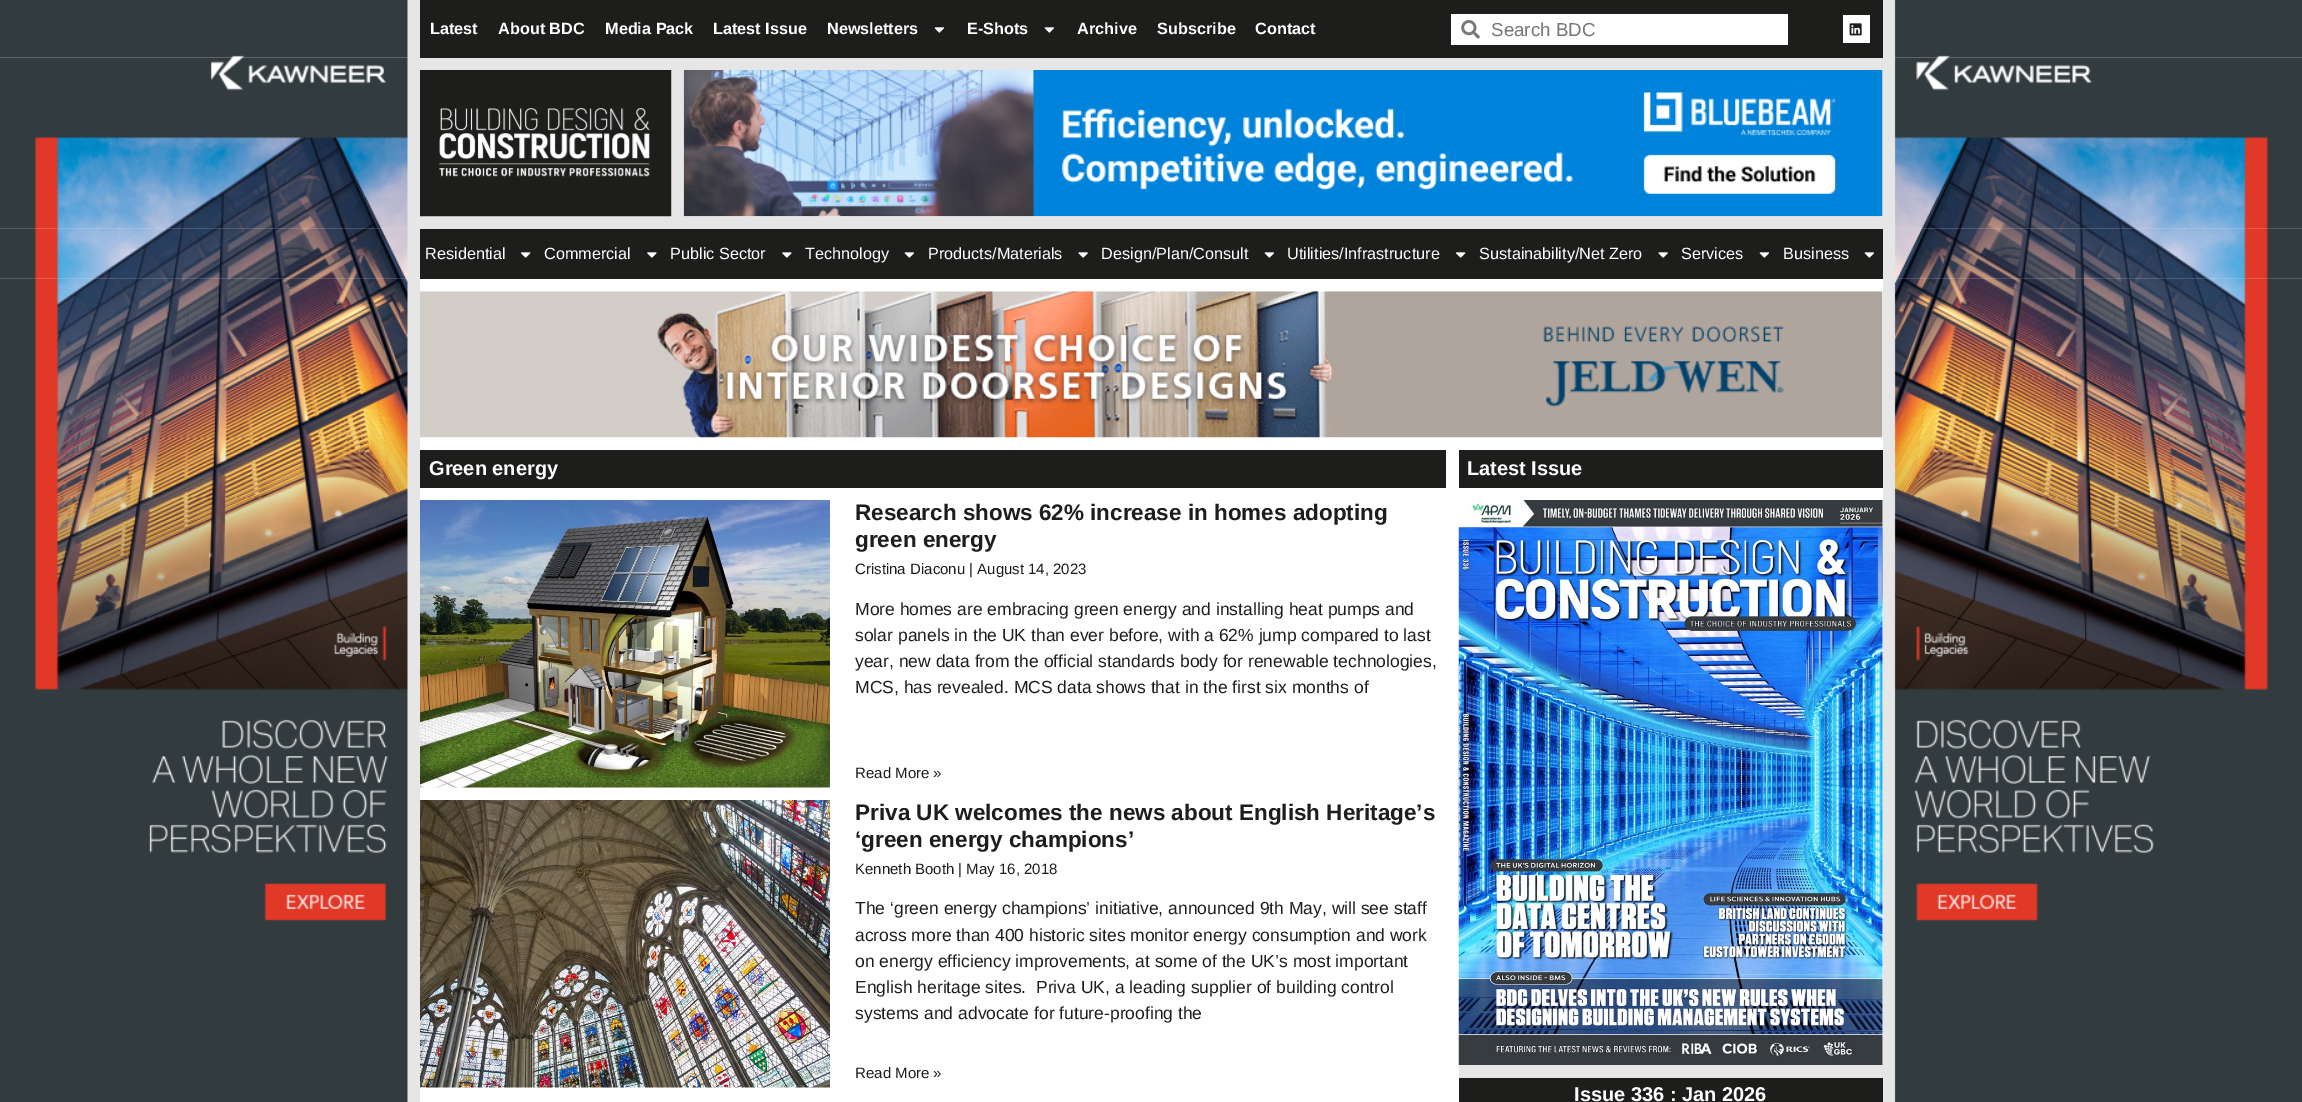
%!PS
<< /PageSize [2302 1102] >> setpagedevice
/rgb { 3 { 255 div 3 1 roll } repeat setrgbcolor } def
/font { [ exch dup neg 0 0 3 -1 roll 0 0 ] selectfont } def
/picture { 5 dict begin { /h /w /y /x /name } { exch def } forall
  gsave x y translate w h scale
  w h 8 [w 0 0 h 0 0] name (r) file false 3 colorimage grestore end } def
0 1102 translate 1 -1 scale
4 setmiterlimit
230 230 230 rgb
0 0 2302 1102 rectfill
(img/1.rgb) 0 0 2302 58 picture
29 29 27 rgb
420 0 1463 58 rectfill
(img/2.rgb) 934 27 10 6 picture
(img/2.rgb) 1044 27 10 6 picture
255 255 255 rgb
1451 14 337 31 rectfill
(img/3.rgb) 1461 20 19 19 picture
1843 15 27 28 rectfill
(img/4.rgb) 1849 23 13 13 picture
(img/5.rgb) 0 57 2302 172 picture
(img/6.rgb) 420 70 252 147 picture
(img/7.rgb) 683 70 1200 147 picture
(img/8.rgb) 0 228 2302 51 picture
29 29 27 rgb
420 229 1463 50 rectfill
(img/9.rgb) 521 252 10 6 picture
(img/10.rgb) 647 252 10 6 picture
(img/10.rgb) 782 252 10 6 picture
(img/2.rgb) 904 252 10 6 picture
(img/11.rgb) 1078 252 10 6 picture
(img/2.rgb) 1264 252 10 6 picture
(img/9.rgb) 1456 252 10 6 picture
(img/11.rgb) 1658 252 10 6 picture
(img/2.rgb) 1759 252 10 6 picture
(img/2.rgb) 1864 252 10 6 picture
(img/12.rgb) 0 278 2302 172 picture
255 255 255 rgb
420 279 1463 171 rectfill
(img/13.rgb) 420 291 1463 147 picture
(img/14.rgb) 0 450 2302 652 picture
420 450 1039 652 rectfill
29 29 27 rgb
420 450 1026 38 rectfill
(img/15.rgb) 420 500 410 288 picture
(img/16.rgb) 420 800 410 288 picture
255 255 255 rgb
1459 488 424 577 rectfill
29 29 27 rgb
1459 450 424 38 rectfill
(img/17.rgb) 1458 500 425 565 picture
1459 1078 424 24 rectfill
/LiberationSans-Bold 16.25 font
255 255 255 rgb
[
  [(Latest) 430 34]
  [(About BDC) 498 34]
  [(Media Pack) 605 34]
  [(Latest Issue) 713 34]
  [(Newsletters) 827 34]
  [(E-Shots) 967 34]
  [(Archive) 1077 34]
  [(Subscribe) 1157 34]
  [(Contact) 1255 34]
] { aload pop moveto show } forall
/LiberationSans-Regular 18.75 font
119 119 118 rgb
1491 36 moveto (Search BDC) show
/LiberationSans-Regular 16.25 font
255 255 255 rgb
[
  [(Residential) 425 259]
  [(Commercial) 544 259]
  [(Public Sector) 670 259]
  [(Technology) 805 259]
  [(Products/Materials) 928 259]
  [(Design/Plan/Consult) 1101 259]
  [(Utilities/Infrastructure) 1287 259]
  [(Sustainability/Net Zero) 1479 259]
  [(Services) 1681 259]
  [(Business) 1783 259]
] { aload pop moveto show } forall
/LiberationSans-Bold 20 font
429 475 moveto (Green energy) show
/LiberationSans-Bold 22.5 font
29 29 27 rgb
855 520 moveto (Research shows 62% increase in homes adopting) show
855 547 moveto (green energy) show
/LiberationSans-Regular 15 font
855 574 moveto (Cristina Diaconu | August 14, 2023) show
/LiberationSans-Regular 17.5 font
[
  [(More homes are embracing green energy and installing heat pumps and) 855 615]
  [(solar panels in the UK than ever before, with a 62% jump compared to last) 855 641]
  [(year, new data from the official standards body for renewable technologies,) 855 667]
  [(MCS, has revealed. MCS data shows that in the first six months of) 855 693]
] { aload pop moveto show } forall
/LiberationSans-Regular 15 font
855 778 moveto (Read More ») show
/LiberationSans-Bold 22.5 font
855 820 moveto (Priva UK welcomes the news about English Heritage’s) show
855 847 moveto (‘green energy champions’) show
/LiberationSans-Regular 15 font
855 874 moveto (Kenneth Booth | May 16, 2018) show
/LiberationSans-Regular 17.5 font
[
  [(The ‘green energy champions’ initiative, announced 9th May, will see staff) 855 914]
  [(across more than 400 historic sites monitor energy consumption and work) 855 941]
  [(on energy efficiency improvements, at some of the UK’s most important) 855 967]
  [(English heritage sites.  Priva UK, a leading supplier of building control) 855 993]
  [(systems and advocate for future-proofing the) 855 1019]
] { aload pop moveto show } forall
/LiberationSans-Regular 15 font
855 1078 moveto (Read More ») show
/LiberationSans-Bold 20 font
255 255 255 rgb
1467 475 moveto (Latest Issue) show
1574 1101 moveto (Issue 336 : Jan 2026) show
showpage
